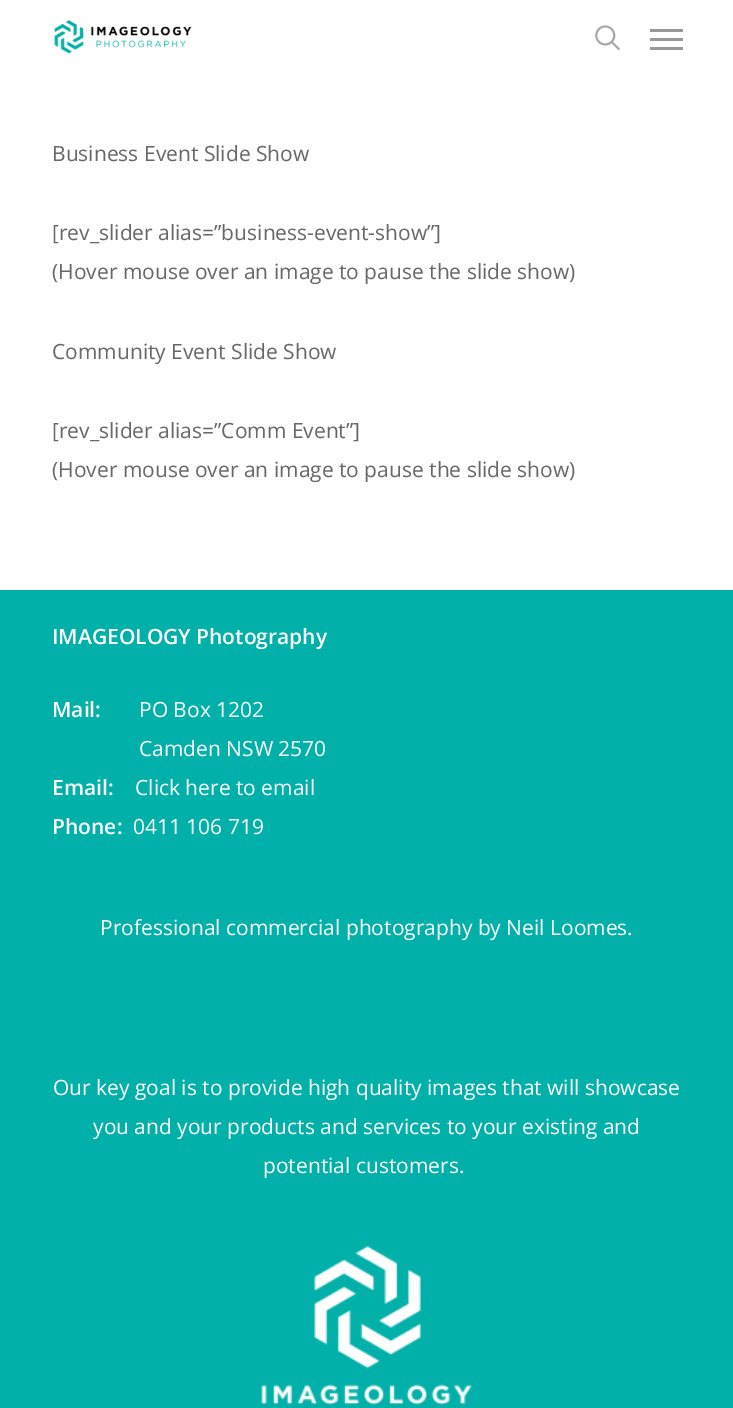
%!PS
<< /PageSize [733 1408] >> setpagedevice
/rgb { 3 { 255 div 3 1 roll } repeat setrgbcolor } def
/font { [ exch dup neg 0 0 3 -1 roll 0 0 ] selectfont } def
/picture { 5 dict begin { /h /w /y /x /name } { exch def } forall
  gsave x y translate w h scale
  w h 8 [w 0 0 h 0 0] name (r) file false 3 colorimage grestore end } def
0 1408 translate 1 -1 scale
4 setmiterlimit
255 255 255 rgb
0 0 733 1408 rectfill
(img/1.rgb) 54 20 138 34 picture
(img/2.rgb) 595 25 25 25 picture
[
  [650 29 33 3 153 153 153]
  [650 47 33 3 153 153 153]
  [650 38 33 3 153 153 153]
  [0 590 733 818 1 176 169]
] { aload pop rgb rectfill } forall
(img/3.rgb) 261 1246 211 159 picture
/OpenSans-Regular 21 font
103 103 103 rgb
[
  [(Business Event Slide Show) 52 161]
  [([rev_slider alias=”business-event-show”]) 52 240]
  [(\(Hover mouse over an image to pause the slide show\)) 52 279]
  [(Community Event Slide Show) 52 359]
  [([rev_slider alias=”Comm Event”]) 52 438]
  [(\(Hover mouse over an image to pause the slide show\)) 52 477]
] { aload pop moveto show } forall
/OpenSans-SemiBold 21 font
255 255 255 rgb
52 644 moveto (IMAGEOLOGY Photography) show
52 717 moveto (Mail:) show
/OpenSans-Regular 21 font
139 717 moveto (PO Box 1202) show
139 756 moveto (Camden NSW 2570) show
/OpenSans-SemiBold 21 font
52 795 moveto (Email:) show
/OpenSans-Regular 21 font
135 795 moveto (Click here to email) show
/OpenSans-SemiBold 21 font
52 834 moveto (Phone:) show
/OpenSans-Regular 21 font
[
  [(0411 106 719) 133 834]
  [(Professional commercial photography by Neil Loomes.) 100 935]
  [(Our key goal is to provide high quality images that will showcase) 53 1095]
  [(you and your products and services to your existing and) 93 1134]
  [(potential customers.) 263 1173]
] { aload pop moveto show } forall
showpage
